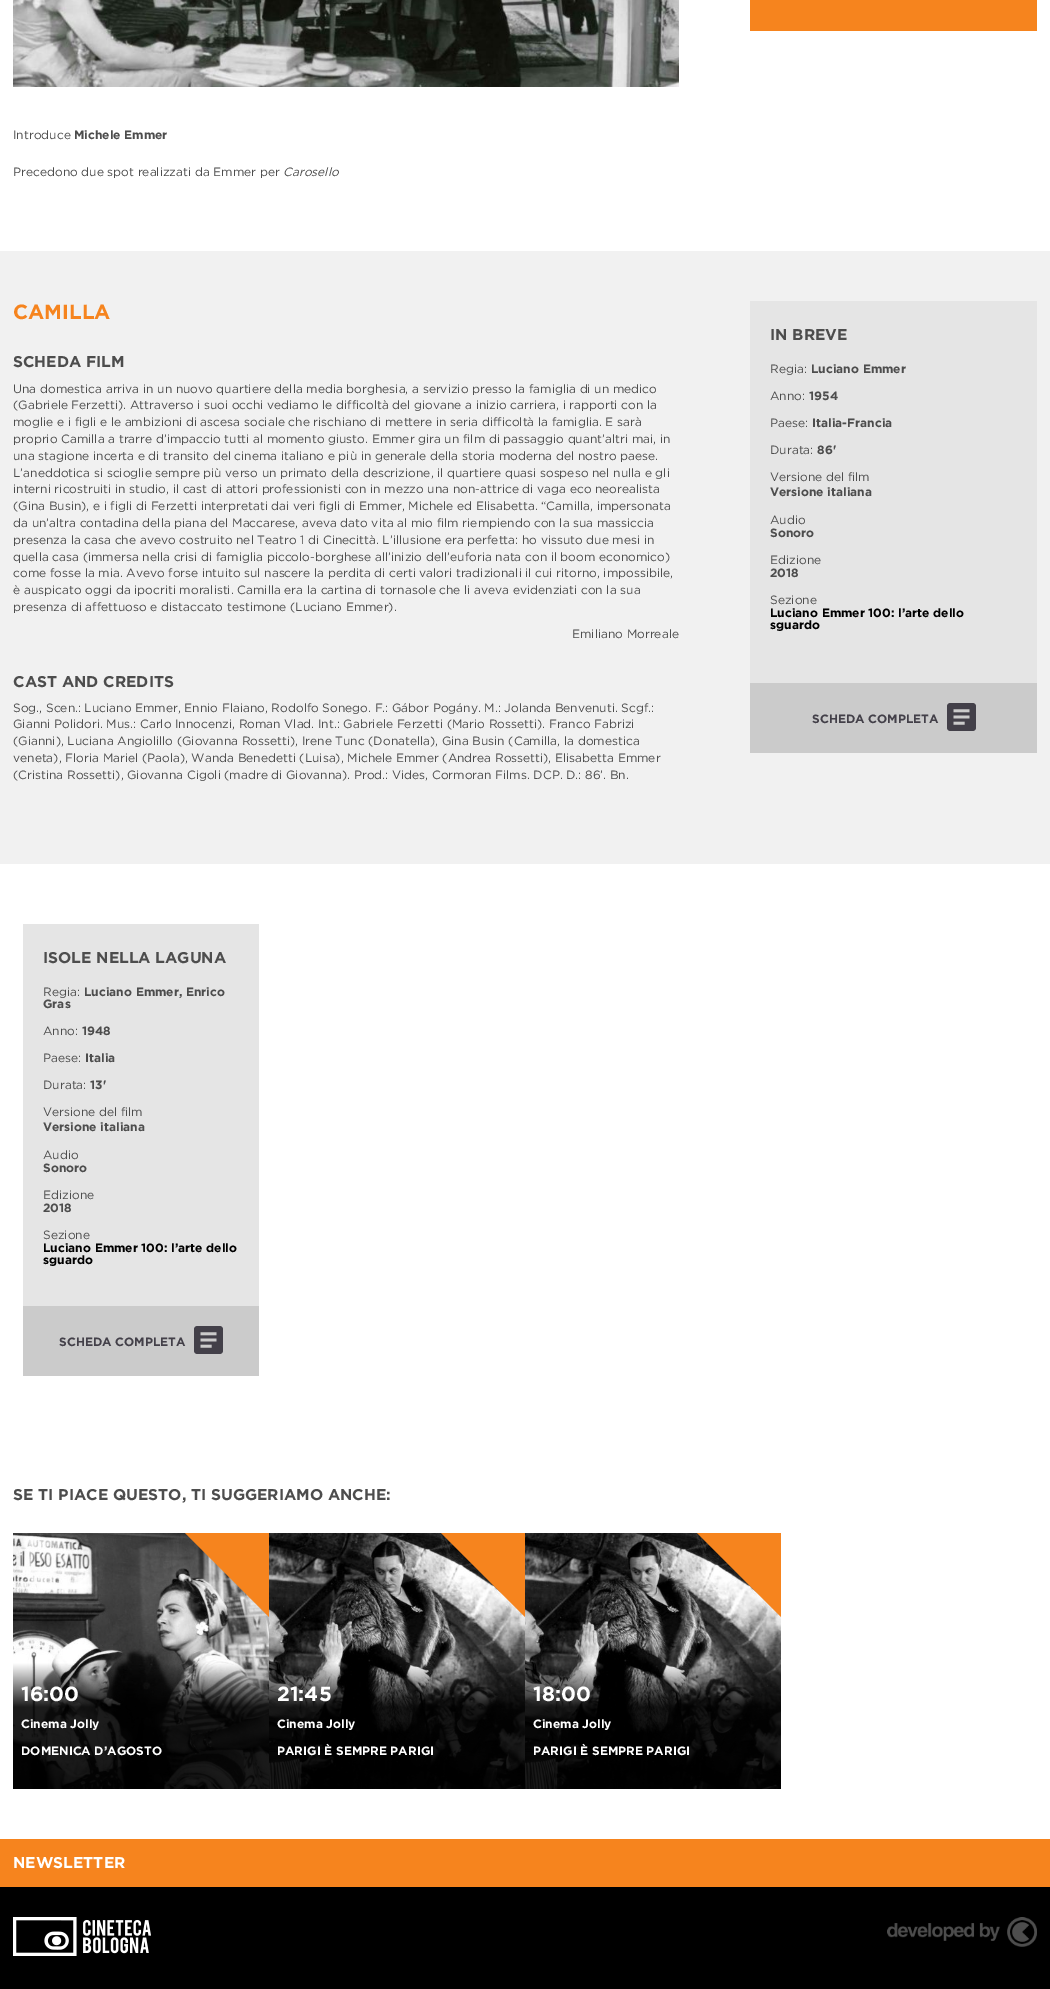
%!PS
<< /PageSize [1050 1989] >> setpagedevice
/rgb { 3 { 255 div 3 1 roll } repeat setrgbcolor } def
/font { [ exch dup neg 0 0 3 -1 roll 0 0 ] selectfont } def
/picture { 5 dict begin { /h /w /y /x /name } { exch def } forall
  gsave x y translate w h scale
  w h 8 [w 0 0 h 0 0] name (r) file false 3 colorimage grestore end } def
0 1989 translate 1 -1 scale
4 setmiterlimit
255 255 255 rgb
0 0 1050 1989 rectfill
246 132 30 rgb
750 0 287 31 rectfill
(img/1.rgb) 13 0 666 87 picture
[
  [0 251 1050 613 241 241 241]
  [750 301 287 382 229 229 229]
  [750 683 287 70 203 203 203]
] { aload pop rgb rectfill } forall
(img/2.rgb) 947 703 29 28 picture
229 229 229 rgb
23 924 236 382 rectfill
203 203 203 rgb
23 1306 236 70 rectfill
(img/2.rgb) 194 1326 29 28 picture
(img/3.rgb) 13 1533 256 256 picture
246 132 30 rgb
269 1533 moveto 269 1617 lineto 185 1533 lineto closepath fill
(img/4.rgb) 269 1533 256 256 picture
525 1533 moveto 525 1617 lineto 441 1533 lineto closepath fill
(img/4.rgb) 525 1533 256 256 picture
781 1533 moveto 781 1617 lineto 697 1533 lineto closepath fill
0 1839 1050 48 rectfill
0 0 0 rgb
0 1887 1050 102 rectfill
(img/5.rgb) 13 1917 138 39 picture
(img/6.rgb) 887 1917 150 30 picture
/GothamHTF-Regular 12 font
77 77 77 rgb
13 139 moveto (Introduce) show
/Gotham-Bold 12 font
74 139 moveto (Michele Emmer) show
/GothamHTF-Regular 12 font
13 176 moveto (Precedono due spot realizzati da Emmer per) show
/GothamHTF-Italic 12 font
283 176 moveto (Carosello) show
/Gotham-Bold 20.5 font
246 132 30 rgb
13 319 moveto (CAMILLA) show
/Gotham-Bold 15.6 font
77 77 77 rgb
13 367 moveto (SCHEDA FILM) show
/GothamHTF-Regular 12 font
[
  [(Una domestica arriva in un nuovo quartiere della media borghesia, a servizio presso la famiglia di un medico) 13 393]
  [(\(Gabriele Ferzetti\). Attraverso i suoi occhi vediamo le difficoltà del giovane a inizio carriera, i rapporti con la) 13 409]
  [(moglie e i figli e le ambizioni di ascesa sociale che rischiano di mettere in seria difficoltà la famiglia. E sarà) 13 426]
  [(proprio Camilla a trarre d’impaccio tutti al momento giusto. Emmer gira un film di passaggio quant’altri mai, in) 13 443]
  [(una stagione incerta e di transito del cinema italiano e più in generale della storia moderna del nostro paese.) 13 460]
  [(L’aneddotica si scioglie sempre più verso un primato della descrizione, il quartiere quasi sospeso nel nulla e gli) 13 477]
  [(interni ricostruiti in studio, il cast di attori professionisti con in mezzo una non-attrice di vaga eco neorealista) 13 493]
  [(\(Gina Busin\), e i figli di Ferzetti interpretati dai veri figli di Emmer, Michele ed Elisabetta. “Camilla, impersonata) 13 510]
  [(da un’altra contadina della piana del Maccarese, aveva dato vita al mio film riempiendo con la sua massiccia) 13 527]
  [(presenza la casa che avevo costruito nel Teatro 1 di Cinecittà. L’illusione era perfetta: ho vissuto due mesi in) 13 544]
  [(quella casa \(immersa nella crisi di famiglia piccolo-borghese all’inizio dell’euforia nata con il boom economico\)) 13 561]
  [(come fosse la mia. Avevo forse intuito sul nascere la perdita di certi valori tradizionali il cui ritorno, impossibile,) 13 577]
  [(è auspicato oggi da ipocriti moralisti. Camilla era la cartina di tornasole che li aveva evidenziati con la sua) 13 594]
  [(presenza di affettuoso e distaccato testimone \(Luciano Emmer\).) 13 611]
  [(Emiliano Morreale) 572 638]
] { aload pop moveto show } forall
/Gotham-Bold 15.6 font
13 687 moveto (CAST AND CREDITS) show
/GothamHTF-Regular 12 font
[
  [(Sog., Scen.: Luciano Emmer, Ennio Flaiano, Rodolfo Sonego. F.: Gábor Pogány. M.: Jolanda Benvenuti. Scgf.:) 13 712]
  [(Gianni Polidori. Mus.: Carlo Innocenzi, Roman Vlad. Int.: Gabriele Ferzetti \(Mario Rossetti\). Franco Fabrizi) 13 728]
  [(\(Gianni\), Luciana Angiolillo \(Giovanna Rossetti\), Irene Tunc \(Donatella\), Gina Busin \(Camilla, la domestica) 13 745]
  [(veneta\), Floria Mariel \(Paola\), Wanda Benedetti \(Luisa\), Michele Emmer \(Andrea Rossetti\), Elisabetta Emmer) 13 762]
  [(\(Cristina Rossetti\), Giovanna Cigoli \(madre di Giovanna\). Prod.: Vides, Cormoran Films. DCP. D.: 86’. Bn.) 13 779]
] { aload pop moveto show } forall
/Gotham-Bold 15.6 font
770 340 moveto (IN BREVE) show
/GothamHTF-Regular 12 font
770 373 moveto (Regia:) show
/Gotham-Bold 12 font
811 373 moveto (Luciano Emmer) show
/GothamHTF-Regular 12 font
770 400 moveto (Anno:) show
/Gotham-Bold 12 font
809 400 moveto (1954) show
/GothamHTF-Regular 12 font
770 427 moveto (Paese:) show
/Gotham-Bold 12 font
812 427 moveto (Italia-Francia) show
/GothamHTF-Regular 12 font
770 454 moveto (Durata:) show
/Gotham-Bold 12 font
817 454 moveto (86') show
/GothamHTF-Regular 12 font
770 481 moveto (Versione del film) show
/Gotham-Bold 12 font
770 496 moveto (Versione italiana) show
/GothamHTF-Regular 12 font
770 524 moveto (Audio) show
/Gotham-Bold 12 font
770 537 moveto (Sonoro) show
/GothamHTF-Regular 12 font
770 564 moveto (Edizione) show
/Gotham-Bold 12 font
770 577 moveto (2018) show
/GothamHTF-Regular 12 font
770 604 moveto (Sezione) show
/Gotham-Bold 12 font
0 0 0 rgb
770 617 moveto (Luciano Emmer 100: l’arte dello) show
770 629 moveto (sguardo) show
67 64 73 rgb
812 723 moveto (SCHEDA COMPLETA) show
/Gotham-Bold 15.6 font
77 77 77 rgb
43 963 moveto (ISOLE NELLA LAGUNA) show
/GothamHTF-Regular 12 font
43 996 moveto (Regia:) show
/Gotham-Bold 12 font
84 996 moveto (Luciano Emmer, Enrico) show
43 1008 moveto (Gras) show
/GothamHTF-Regular 12 font
43 1035 moveto (Anno:) show
/Gotham-Bold 12 font
82 1035 moveto (1948) show
/GothamHTF-Regular 12 font
43 1062 moveto (Paese:) show
/Gotham-Bold 12 font
85 1062 moveto (Italia) show
/GothamHTF-Regular 12 font
43 1089 moveto (Durata:) show
/Gotham-Bold 12 font
90 1089 moveto (13') show
/GothamHTF-Regular 12 font
43 1116 moveto (Versione del film) show
/Gotham-Bold 12 font
43 1131 moveto (Versione italiana) show
/GothamHTF-Regular 12 font
43 1159 moveto (Audio) show
/Gotham-Bold 12 font
43 1172 moveto (Sonoro) show
/GothamHTF-Regular 12 font
43 1199 moveto (Edizione) show
/Gotham-Bold 12 font
43 1212 moveto (2018) show
/GothamHTF-Regular 12 font
43 1239 moveto (Sezione) show
/Gotham-Bold 12 font
0 0 0 rgb
43 1252 moveto (Luciano Emmer 100: l’arte dello) show
43 1264 moveto (sguardo) show
67 64 73 rgb
59 1346 moveto (SCHEDA COMPLETA) show
/Gotham-Bold 15.6 font
77 77 77 rgb
13 1500 moveto (SE TI PIACE QUESTO, TI SUGGERIAMO ANCHE:) show
/Gotham-Bold 20.5 font
255 255 255 rgb
21 1701 moveto (16:00) show
/Gotham-Bold 12 font
21 1728 moveto (Cinema Jolly) show
21 1755 moveto (DOMENICA D’AGOSTO) show
/Gotham-Bold 20.5 font
277 1701 moveto (21:45) show
/Gotham-Bold 12 font
277 1728 moveto (Cinema Jolly) show
277 1755 moveto (PARIGI È SEMPRE PARIGI) show
/Gotham-Bold 20.5 font
533 1701 moveto (18:00) show
/Gotham-Bold 12 font
533 1728 moveto (Cinema Jolly) show
533 1755 moveto (PARIGI È SEMPRE PARIGI) show
/Gotham-Bold 15.6 font
13 1868 moveto (NEWSLETTER) show
showpage
